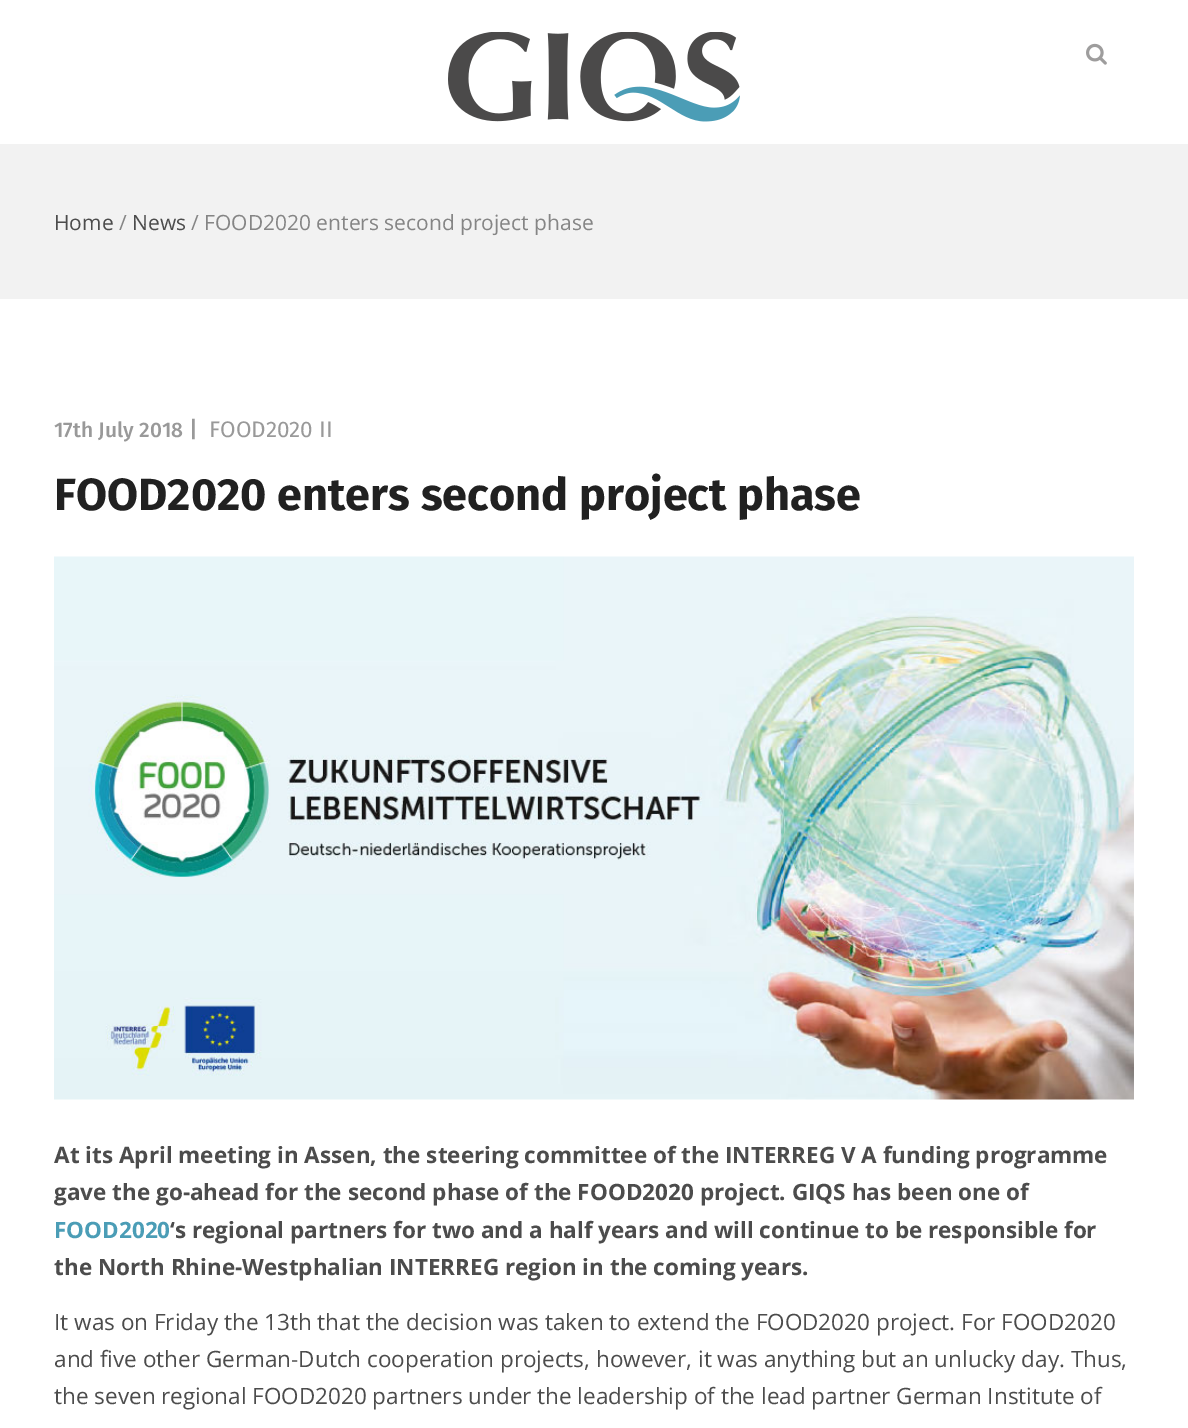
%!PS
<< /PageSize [1188 1428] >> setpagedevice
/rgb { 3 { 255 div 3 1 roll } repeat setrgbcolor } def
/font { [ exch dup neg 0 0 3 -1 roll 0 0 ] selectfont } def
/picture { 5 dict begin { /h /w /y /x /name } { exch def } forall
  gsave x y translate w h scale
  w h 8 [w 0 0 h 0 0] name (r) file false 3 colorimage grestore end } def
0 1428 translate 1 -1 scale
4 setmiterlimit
255 255 255 rgb
0 0 1188 1428 rectfill
(img/1.rgb) 448 32 292 90 picture
(img/2.rgb) 1086 43 21 22 picture
242 242 242 rgb
0 144 1188 155 rectfill
(img/3.rgb) 54 556 1080 544 picture
/OpenSans-Regular 21 font
76 76 76 rgb
54 230 moveto (Home) show
133 133 133 rgb
119 230 moveto (/) show
76 76 76 rgb
132 230 moveto (News) show
133 133 133 rgb
191 230 moveto (/ FOOD2020 enters second project phase) show
/FiraSans-Medium 21 font
153 153 153 rgb
54 437 moveto (17th July 2018) show
/FiraSans-Medium 22.5 font
189 437 moveto (|) show
/FiraSans-Regular 22.5 font
209 437 moveto (FOOD2020 II) show
/FiraSans-Bold 45 font
33 33 33 rgb
54 510 moveto (FOOD2020 enters second project phase) show
/OpenSans-Bold 22.5 font
76 76 76 rgb
54 1163 moveto (At its April meeting in Assen, the steering committee of the INTERREG V A funding programme) show
54 1200 moveto (gave the go-ahead for the second phase of the FOOD2020 project. GIQS has been one of) show
75 157 182 rgb
54 1238 moveto (FOOD2020) show
76 76 76 rgb
170 1238 moveto (‘s regional partners for two and a half years and will continue to be responsible for) show
54 1275 moveto (the North Rhine-Westphalian INTERREG region in the coming years.) show
/OpenSans-Regular 22.5 font
[
  [(It was on Friday the 13th that the decision was taken to extend the FOOD2020 project. For FOOD2020) 54 1330]
  [(and five other German-Dutch cooperation projects, however, it was anything but an unlucky day. Thus,) 54 1367]
  [(the seven regional FOOD2020 partners under the leadership of the lead partner German Institute of) 54 1404]
] { aload pop moveto show } forall
showpage
